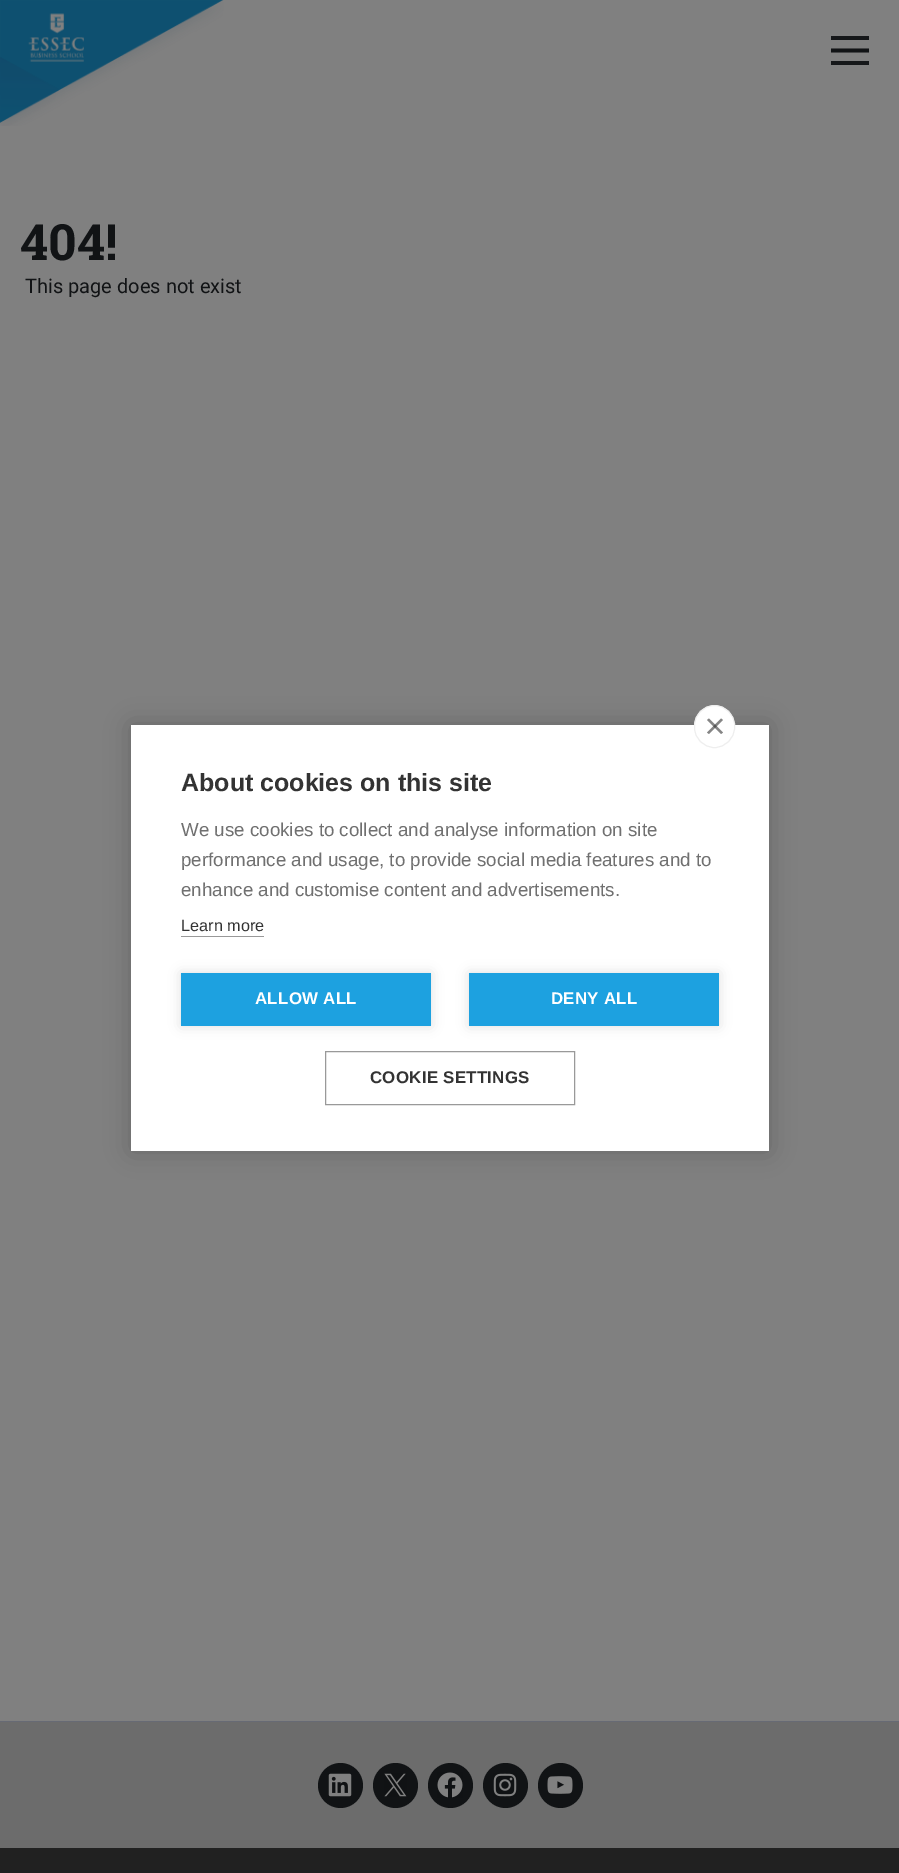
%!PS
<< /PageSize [899 1873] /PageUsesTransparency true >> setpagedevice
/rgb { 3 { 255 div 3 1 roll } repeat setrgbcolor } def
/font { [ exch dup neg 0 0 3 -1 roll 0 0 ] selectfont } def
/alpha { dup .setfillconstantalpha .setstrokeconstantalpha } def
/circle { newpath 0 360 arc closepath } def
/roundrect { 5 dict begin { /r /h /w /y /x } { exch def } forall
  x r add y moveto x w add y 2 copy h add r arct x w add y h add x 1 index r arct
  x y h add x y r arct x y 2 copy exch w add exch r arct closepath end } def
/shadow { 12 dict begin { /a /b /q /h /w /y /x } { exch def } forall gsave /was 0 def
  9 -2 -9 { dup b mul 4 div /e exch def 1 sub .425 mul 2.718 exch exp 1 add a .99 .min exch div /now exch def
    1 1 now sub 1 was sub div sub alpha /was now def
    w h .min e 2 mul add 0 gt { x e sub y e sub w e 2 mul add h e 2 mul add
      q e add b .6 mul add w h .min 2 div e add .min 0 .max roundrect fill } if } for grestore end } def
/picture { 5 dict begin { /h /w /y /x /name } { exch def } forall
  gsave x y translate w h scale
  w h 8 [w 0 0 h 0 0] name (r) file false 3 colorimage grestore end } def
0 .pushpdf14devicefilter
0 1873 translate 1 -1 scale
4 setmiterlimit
128 128 128 rgb
0 0 899 1873 rectfill
(img/1.rgb) 0 0 224 126 picture
(img/2.rgb) 28 13 56 49 picture
22 24 26 rgb
831 36 38 4 rectfill
17 19 21 rgb
3.8 setlinewidth
831 50.5 moveto 869 50.5 lineto stroke
[
  [831 61 38 4 22 24 26]
  [0 1722 899 126 108 108 108]
  [0 1721 899 1 103 106 116]
] { aload pop rgb rectfill } forall
17 19 21 rgb
340.5 1785.5 22.5 circle fill
(img/3.rgb) 328 1773 24 24 picture
395.5 1785.5 22.5 circle fill
(img/4.rgb) 384 1773 23 24 picture
450.5 1785.5 22.5 circle fill
(img/5.rgb) 437 1772 26 26 picture
505.5 1785.5 22.5 circle fill
(img/6.rgb) 493 1773 24 24 picture
560.5 1785.5 22.5 circle fill
(img/7.rgb) 547 1776 26 18 picture
33 33 33 rgb
0 1848 899 25 rectfill
0 0 0 rgb
131 725 638 426 0 12.5 0.2 shadow
255 255 255 rgb
131 725 638 426 rectfill
694.5 705.5 40 42 20 roundrect gsave fill grestore
238 238 238 rgb
1 setlinewidth
stroke
133 133 133 rgb
707 732.5 moveto 721 718.5 lineto 723 720 lineto 709 734 lineto closepath fill
0.6 alpha
51 51 51 rgb
709 718.5 moveto 723 732.5 lineto 721 734 lineto 707 720 lineto closepath fill
1 alpha
153 153 153 rgb
181 936 83 1 rectfill
0 0 0 rgb
181 973 250 53 0 6 0.12 shadow
29 161 224 rgb
181 973 250 53 rectfill
0 0 0 rgb
469 973 250 53 0 6 0.12 shadow
29 161 224 rgb
469 973 250 53 rectfill
153 153 153 rgb
325.5 1051.5 249 53 rectstroke
/RobotoSlab-Bold 50 font
17 19 21 rgb
20 260 moveto (404!) show
/Roboto-Regular 20 font
25 293 moveto (This page does not exist) show
/LiberationSans-Bold 25 font
51 51 51 rgb
181 791 moveto (About cookies on this site) show
/LiberationSans-Regular 18.75 font
112 112 112 rgb
[
  [(We use cookies to collect and analyse information on site) 181 836]
  [(performance and usage, to provide social media features and to) 181 866]
  [(enhance and customise content and advertisements.) 181 896]
] { aload pop moveto show } forall
/LiberationSans-Regular 16.25 font
51 51 51 rgb
181 931 moveto (Learn more) show
/LiberationSans-Bold 16.9 font
255 255 255 rgb
255 1004 moveto 0.25 0 (ALLOW ALL) ashow
551 1004 moveto 0.25 0 (DENY ALL) ashow
51 51 51 rgb
370 1083 moveto 0.25 0 (COOKIE SETTINGS) ashow
.poppdf14devicefilter showpage
